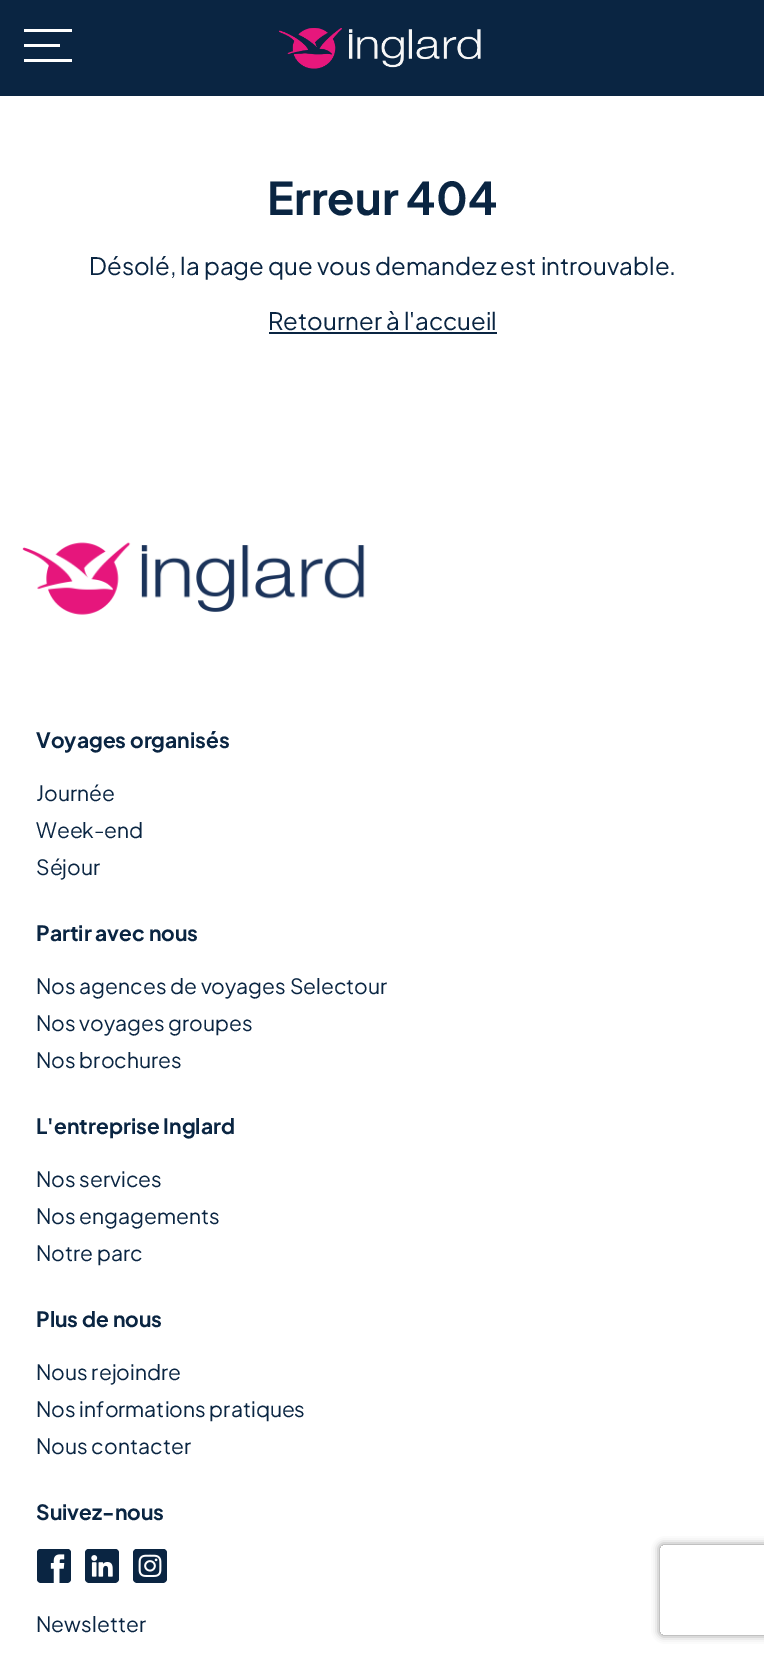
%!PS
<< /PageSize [764 1655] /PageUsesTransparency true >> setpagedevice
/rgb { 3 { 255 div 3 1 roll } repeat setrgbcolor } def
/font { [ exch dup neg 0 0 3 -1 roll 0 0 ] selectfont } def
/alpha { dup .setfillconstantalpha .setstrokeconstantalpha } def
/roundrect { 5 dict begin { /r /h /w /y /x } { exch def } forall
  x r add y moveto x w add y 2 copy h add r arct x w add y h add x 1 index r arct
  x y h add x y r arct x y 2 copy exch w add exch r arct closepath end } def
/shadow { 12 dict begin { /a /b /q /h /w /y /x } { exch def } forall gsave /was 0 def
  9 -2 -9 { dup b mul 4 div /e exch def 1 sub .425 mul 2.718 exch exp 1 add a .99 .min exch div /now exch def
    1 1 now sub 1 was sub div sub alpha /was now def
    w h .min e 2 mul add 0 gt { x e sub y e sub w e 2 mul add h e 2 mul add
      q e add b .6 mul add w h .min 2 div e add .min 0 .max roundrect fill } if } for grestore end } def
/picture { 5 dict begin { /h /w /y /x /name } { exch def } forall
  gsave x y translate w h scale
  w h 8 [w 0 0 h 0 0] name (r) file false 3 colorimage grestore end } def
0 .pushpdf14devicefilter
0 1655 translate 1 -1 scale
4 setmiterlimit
255 255 255 rgb
0 0 764 1655 rectfill
[
  [0 0 764 96 10 37 66]
  [24 29 48 3 255 255 255]
  [24 44 36 3 255 255 255]
  [24 59 48 3 255 255 255]
] { aload pop rgb rectfill } forall
(img/1.rgb) 279 28 202 41 picture
10 37 66 rgb
269 332 228 2 rectfill
(img/2.rgb) 22 542 343 73 picture
(img/3.rgb) 37 1549 34 34 picture
(img/4.rgb) 85 1549 34 34 picture
(img/5.rgb) 133 1549 34 34 picture
gsave
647 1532 moveto 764 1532 lineto 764 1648 lineto 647 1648 lineto closepath 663 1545 moveto 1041 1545 lineto 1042.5 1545 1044 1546.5 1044 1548 curveto 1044 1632 lineto 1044 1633.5 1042.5 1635 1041 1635 curveto 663 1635 lineto 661.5 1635 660 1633.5 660 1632 curveto 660 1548 lineto 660 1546.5 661.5 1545 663 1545 curveto closepath eoclip newpath
128 128 128 rgb
660 1545 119 90 3 4 1 shadow
grestore
/PlusJakartaSans-Bold 45 font
267 215 moveto (Erreur 404) show
/PlusJakartaSans-Regular 24 font
89 275 moveto (Désolé, la page que vous demandez est introuvable.) show
268 330 moveto (Retourner à l'accueil) show
/PlusJakartaSans-Bold 21 font
36 748 moveto (Voyages organisés) show
/PlusJakartaSans-Regular 21 font
[
  [(Journée) 36 801]
  [(Week-end) 36 838]
  [(Séjour) 36 875]
] { aload pop moveto show } forall
/PlusJakartaSans-Bold 21 font
36 941 moveto (Partir avec nous) show
/PlusJakartaSans-Regular 21 font
[
  [(Nos agences de voyages Selectour) 36 994]
  [(Nos voyages groupes) 36 1031]
  [(Nos brochures) 36 1068]
] { aload pop moveto show } forall
/PlusJakartaSans-Bold 21 font
36 1134 moveto (L'entreprise Inglard) show
/PlusJakartaSans-Regular 21 font
[
  [(Nos services) 36 1187]
  [(Nos engagements) 36 1224]
  [(Notre parc) 36 1261]
] { aload pop moveto show } forall
/PlusJakartaSans-Bold 21 font
36 1327 moveto (Plus de nous) show
/PlusJakartaSans-Regular 21 font
[
  [(Nous rejoindre) 36 1380]
  [(Nos informations pratiques) 36 1417]
  [(Nous contacter) 36 1454]
] { aload pop moveto show } forall
/PlusJakartaSans-Bold 21 font
36 1520 moveto (Suivez-nous) show
/PlusJakartaSans-Regular 21 font
36 1632 moveto (Newsletter) show
.poppdf14devicefilter showpage
